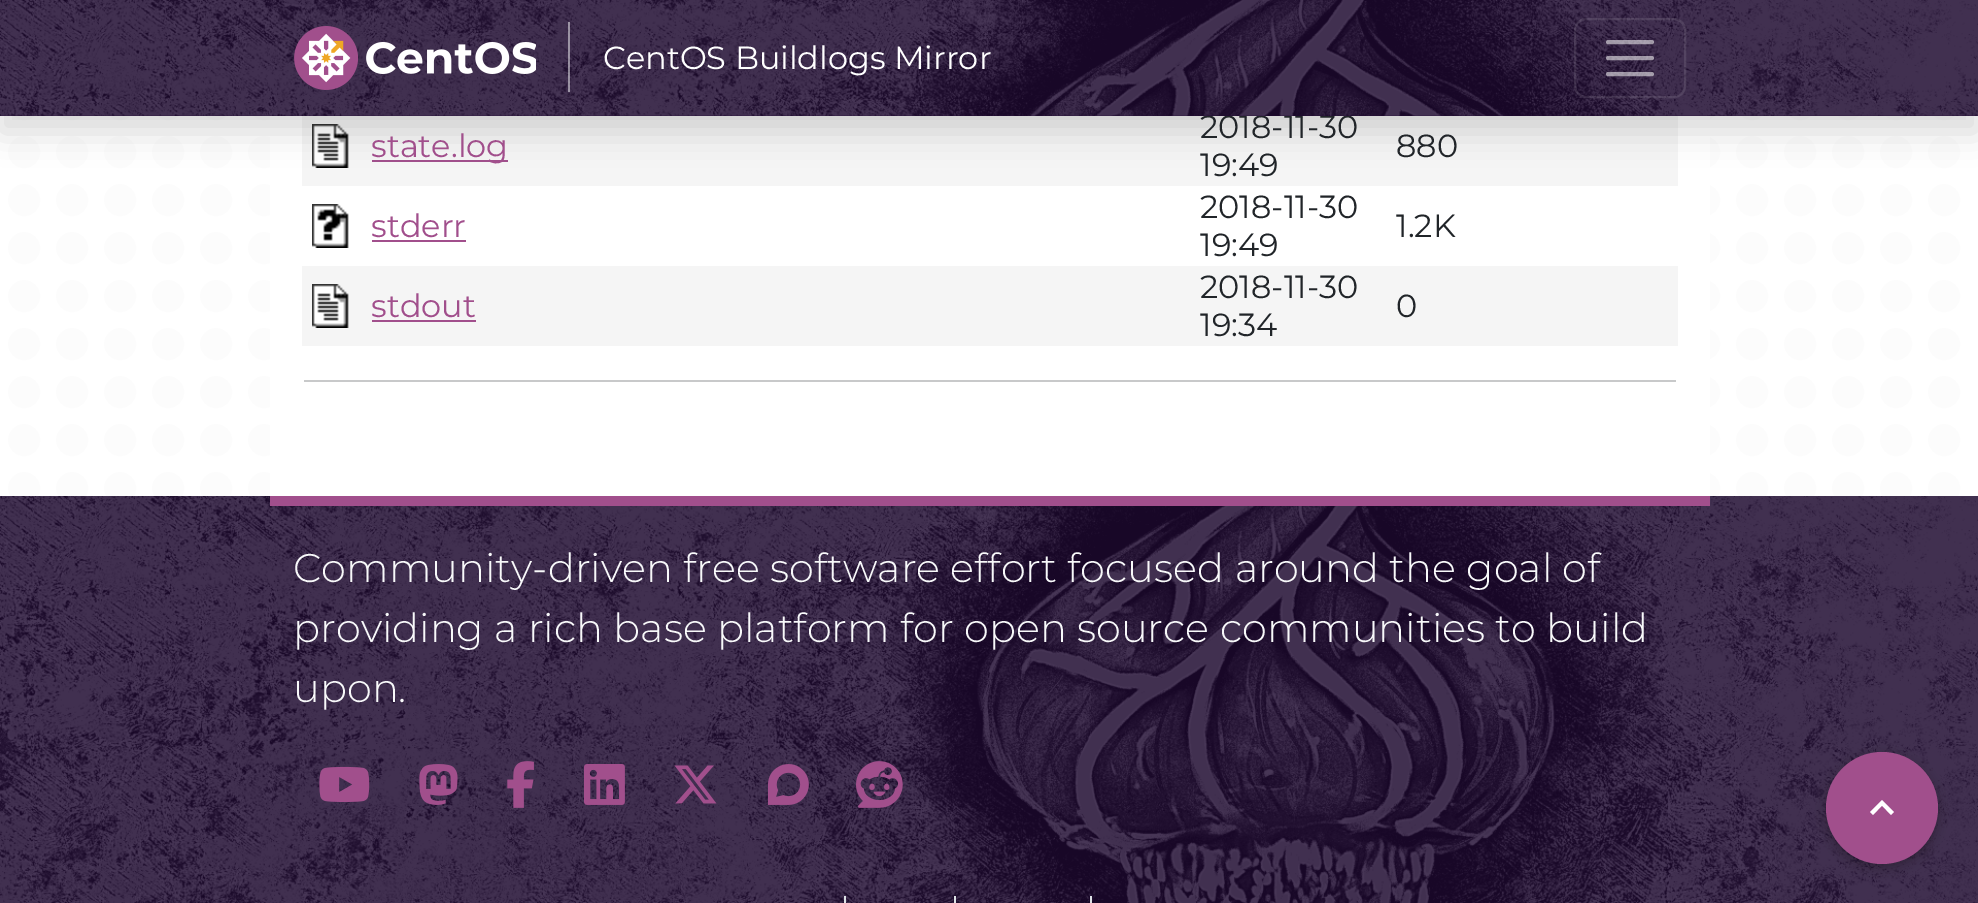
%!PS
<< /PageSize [1978 903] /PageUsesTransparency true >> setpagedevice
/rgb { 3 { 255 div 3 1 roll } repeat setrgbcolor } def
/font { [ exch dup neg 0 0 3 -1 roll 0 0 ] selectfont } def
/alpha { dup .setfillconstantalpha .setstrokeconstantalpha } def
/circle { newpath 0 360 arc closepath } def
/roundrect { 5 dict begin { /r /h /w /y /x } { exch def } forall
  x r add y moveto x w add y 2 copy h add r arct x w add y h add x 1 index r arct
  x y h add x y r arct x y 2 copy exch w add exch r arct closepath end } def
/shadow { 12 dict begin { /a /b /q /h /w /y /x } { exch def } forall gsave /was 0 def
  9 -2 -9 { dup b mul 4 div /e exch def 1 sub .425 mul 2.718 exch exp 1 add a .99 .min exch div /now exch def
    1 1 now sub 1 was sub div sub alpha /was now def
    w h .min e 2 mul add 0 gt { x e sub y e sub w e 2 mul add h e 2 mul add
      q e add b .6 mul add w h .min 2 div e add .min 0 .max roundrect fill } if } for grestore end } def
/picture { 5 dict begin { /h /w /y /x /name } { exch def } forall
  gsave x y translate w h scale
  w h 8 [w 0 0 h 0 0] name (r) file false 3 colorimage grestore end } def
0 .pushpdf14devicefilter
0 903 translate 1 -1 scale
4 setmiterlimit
255 255 255 rgb
0 0 1978 903 rectfill
252 252 252 rgb
32 setlinewidth
1 setlinecap
[0 48] 0 setdash
24 104 moveto 1944.4 104 lineto stroke
24 152 moveto 1944.4 152 lineto stroke
24 200 moveto 1944.4 200 lineto stroke
24 248 moveto 1944.4 248 lineto stroke
24 296 moveto 1944.4 296 lineto stroke
24 344 moveto 1944.4 344 lineto stroke
24 392 moveto 1944.4 392 lineto stroke
24 440 moveto 1944.4 440 lineto stroke
24 488 moveto 1944.4 488 lineto stroke
255 255 255 rgb
270 116 1440 380 rectfill
245 245 245 rgb
302 116 1376 70 rectfill
(img/3.rgb) 312 124 37 44 picture
161 79 140 rgb
372 160 136 2 rectfill
0 0 0 rgb
0 16 1978 116 0 16 0.15 shadow
(img/4.rgb) 312 204 37 44 picture
161 79 140 rgb
372 240 94 2 rectfill
245 245 245 rgb
302 266 1376 80 rectfill
(img/3.rgb) 312 284 37 44 picture
[
  [372 320 104 2 161 79 140]
  [304 380 1372 2 200 201 202]
  [0 496 1978 407 32 7 53]
] { aload pop rgb rectfill } forall
(img/5.rgb) 0 496 1978 407 picture
161 79 140 rgb
270 496 1440 10 rectfill
(img/6.rgb) 319 766 51 36 picture
(img/7.rgb) 419 764 39 41 picture
(img/8.rgb) 507 761 27 47 picture
(img/9.rgb) 584 764 41 41 picture
(img/10.rgb) 674 765 43 39 picture
(img/11.rgb) 768 764 41 41 picture
(img/12.rgb) 856 761 47 47 picture
[
  [844 896 2 7 222 226 230]
  [954 896 2 7 222 226 230]
  [1090 896 2 7 222 226 230]
] { aload pop rgb rectfill } forall
0 0 0 rgb
1826 756 112 112 56 5 0.26 shadow
161 79 140 rgb
1882 808 56 circle fill
255 255 255 rgb
1873 815 moveto 1882 805.5 lineto 1891 815 lineto 1894 812 lineto 1882 800 lineto 1870 812 lineto closepath fill
/Montserrat-Regular 32 font
161 79 140 rgb
371 157 moveto (state.log) show
33 37 41 rgb
1200 138 moveto (2018-11-30) show
32 7 53 rgb
0 0 1978 116 rectfill
(img/1.rgb) 0 0 1978 116 picture
0.1 alpha
255 255 255 rgb
2 setlinewidth
0 setlinecap
[] 0 setdash
1575 19 110 78 11 roundrect stroke
0.55 alpha
4 setlinewidth
1 setlinecap
1608 42 moveto 1652 42 lineto 1608 58 moveto 1652 58 lineto 1608 74 moveto 1652 74 lineto stroke
1 alpha
603 69 moveto (CentOS Buildlogs Mirror) show
0.5 alpha
248 249 250 rgb
568 22 2 70 rectfill
1 alpha
(img/2.rgb) 294 26 242 64 picture
33 37 41 rgb
1200 176 moveto (19:49) show
1396 157 moveto (880) show
161 79 140 rgb
371 237 moveto (stderr) show
33 37 41 rgb
[
  [(2018-11-30) 1200 218]
  [(19:49) 1200 256]
  [(1.2K) 1396 237]
] { aload pop moveto show } forall
161 79 140 rgb
371 317 moveto (stdout) show
33 37 41 rgb
[
  [(2018-11-30) 1200 298]
  [(19:34) 1200 336]
  [(0) 1396 317]
] { aload pop moveto show } forall
/Montserrat-Light 40 font
248 249 250 rgb
[
  [(Community-driven free software effort focused around the goal of) 293 582]
  [(providing a rich base platform for open source communities to build) 293 642]
  [(upon.) 293 702]
] { aload pop moveto show } forall
.poppdf14devicefilter showpage
